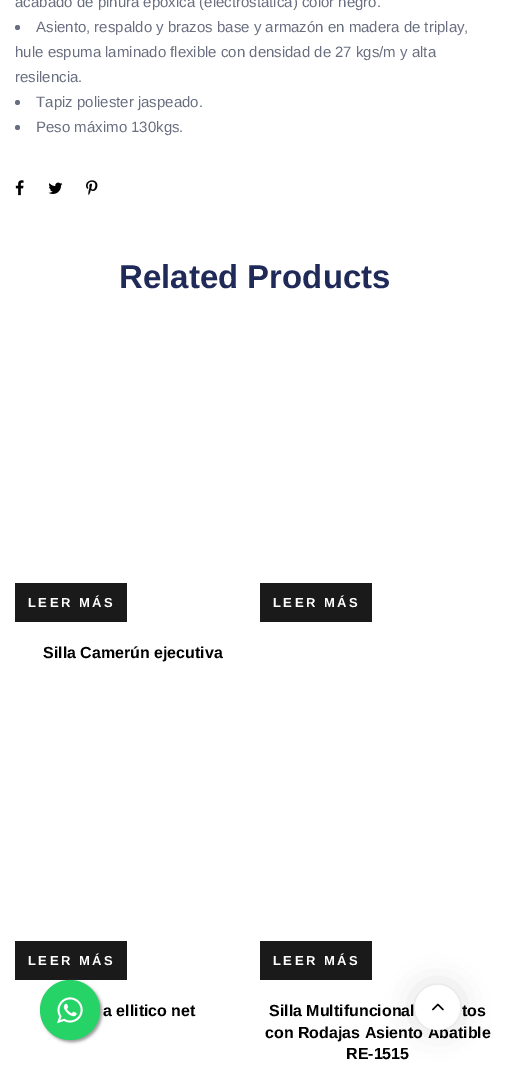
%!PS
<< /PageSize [510 1080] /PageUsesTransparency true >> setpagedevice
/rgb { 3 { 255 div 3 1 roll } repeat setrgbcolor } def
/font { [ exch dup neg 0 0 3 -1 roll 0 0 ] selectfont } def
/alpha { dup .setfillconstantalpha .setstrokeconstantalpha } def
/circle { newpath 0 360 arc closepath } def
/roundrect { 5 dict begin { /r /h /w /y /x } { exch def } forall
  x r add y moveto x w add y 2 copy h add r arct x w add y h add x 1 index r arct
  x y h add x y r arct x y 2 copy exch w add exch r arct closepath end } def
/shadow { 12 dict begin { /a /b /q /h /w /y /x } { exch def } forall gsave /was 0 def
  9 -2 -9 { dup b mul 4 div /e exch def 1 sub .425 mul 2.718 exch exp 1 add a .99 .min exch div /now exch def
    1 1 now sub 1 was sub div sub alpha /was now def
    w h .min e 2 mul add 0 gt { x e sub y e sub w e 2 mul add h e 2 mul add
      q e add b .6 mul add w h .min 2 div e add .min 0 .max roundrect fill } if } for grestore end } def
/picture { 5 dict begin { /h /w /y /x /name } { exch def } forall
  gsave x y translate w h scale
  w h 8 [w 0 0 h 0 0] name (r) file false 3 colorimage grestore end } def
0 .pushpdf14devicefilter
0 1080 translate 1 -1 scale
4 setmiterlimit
255 255 255 rgb
0 0 510 1080 rectfill
105 111 128 rgb
17.5 27.5 2.5 circle fill
17.5 102.5 2.5 circle fill
17.5 127.5 2.5 circle fill
(img/1.rgb) 15 180 9 16 picture
(img/2.rgb) 48 182 15 12 picture
(img/3.rgb) 86 180 12 16 picture
[
  [15 583 112 39 26 26 26]
  [260 583 112 39 26 26 26]
  [15 941 112 39 26 26 26]
  [260 941 112 39 26 26 26]
] { aload pop rgb rectfill } forall
0 0 0 rgb
417 987 41 41 20.5 15 0.15 shadow
153 153 153 rgb
42 982 60 60 30 1.5 1 shadow
37 211 102 rgb
70 1010 30 circle fill
(img/5.rgb) 57 997 26 27 picture
/LiberationSans-Regular 15 font
105 111 128 rgb
[
  [(acabado de pinura epóxica \(electrostática\) color negro.) 15 7]
  [(Asiento, respaldo y brazos base y armazón en madera de triplay,) 36 32]
  [(hule espuma laminado flexible con densidad de 27 kgs/m y alta) 15 57]
  [(resilencia.) 15 82]
  [(Tapiz poliester jaspeado.) 36 107]
  [(Peso máximo 130kgs.) 36 132]
] { aload pop moveto show } forall
/LiberationSans-Bold 33 font
31 42 88 rgb
119 288 moveto (Related Products) show
/LiberationSans-Bold 13 font
255 255 255 rgb
28 607 moveto 2.5 0 (LEER MÁS) ashow
/LiberationSans-Bold 16 font
0 0 0 rgb
43 658 moveto (Silla Camerún ejecutiva) show
/LiberationSans-Bold 13 font
255 255 255 rgb
273 607 moveto 2.5 0 (LEER MÁS) ashow
28 965 moveto 2.5 0 (LEER MÁS) ashow
/LiberationSans-Bold 16 font
0 0 0 rgb
103 1016 moveto (a ellitico net) show
/LiberationSans-Bold 13 font
255 255 255 rgb
273 965 moveto 2.5 0 (LEER MÁS) ashow
/LiberationSans-Bold 16 font
0 0 0 rgb
[
  [(Silla Multifuncional) 269 1016]
  [(tos) 462 1016]
  [(con Rodajas Asiento Abatible) 265 1038]
  [(RE-1515) 346 1059]
] { aload pop moveto show } forall
255 255 255 rgb
437.5 1007.5 22.5 circle fill
(img/4.rgb) 432 1003 12 8 picture
.poppdf14devicefilter showpage
